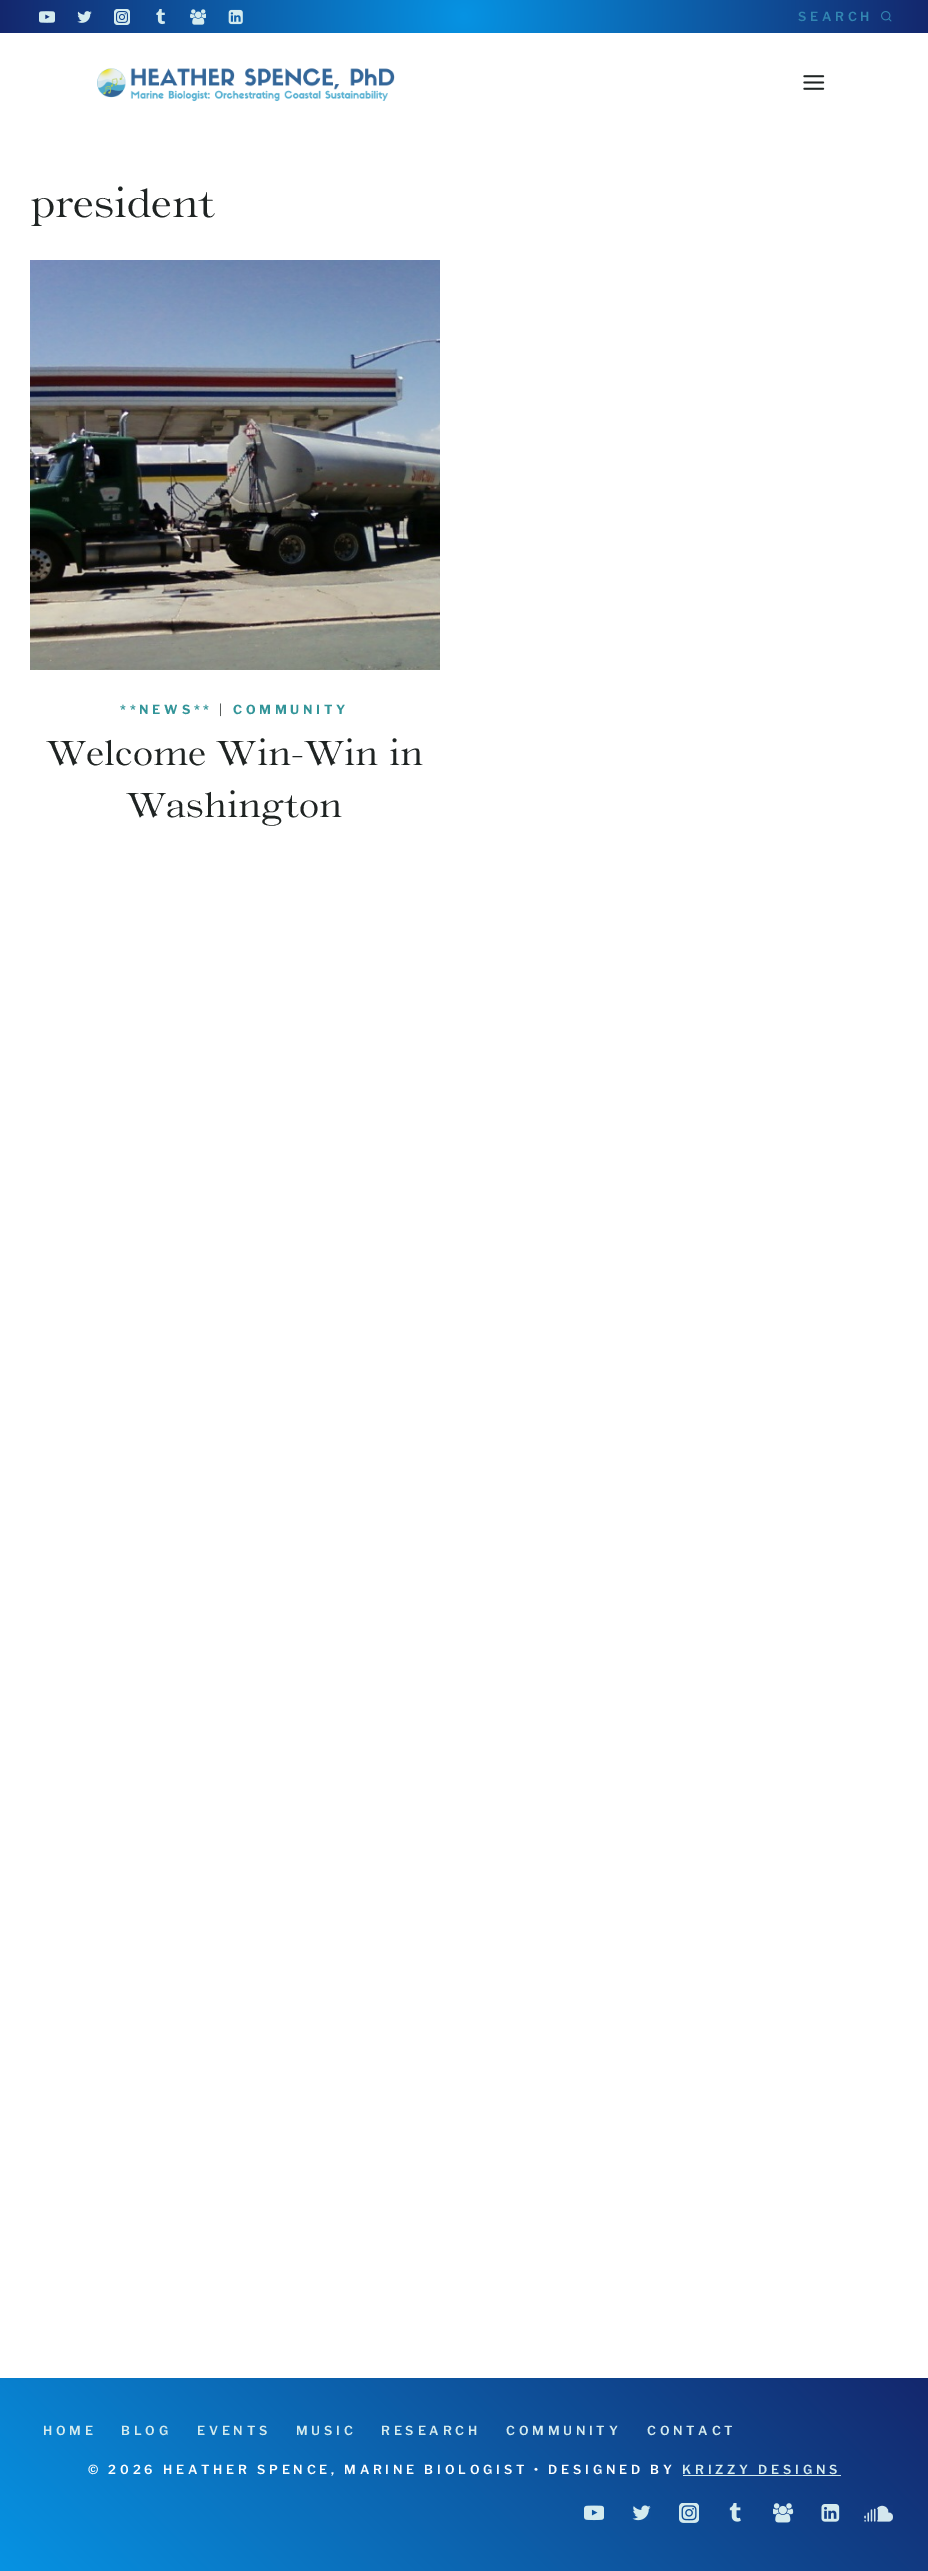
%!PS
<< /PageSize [928 2571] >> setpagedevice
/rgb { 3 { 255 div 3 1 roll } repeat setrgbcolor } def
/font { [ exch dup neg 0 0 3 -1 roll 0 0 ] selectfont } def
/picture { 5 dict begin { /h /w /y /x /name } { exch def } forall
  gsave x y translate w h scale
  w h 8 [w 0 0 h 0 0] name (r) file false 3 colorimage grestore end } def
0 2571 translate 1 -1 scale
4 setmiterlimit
255 255 255 rgb
0 0 928 2571 rectfill
gsave 0 0 moveto 928 0 lineto 928 33 lineto 0 33 lineto closepath clip newpath 464 16 translate 465 465 scale
<< /ShadingType 3 /ColorSpace /DeviceRGB /Coords [0 0 0 0 0 1] /Extend [true true] /Function << /FunctionType 2 /Domain [0 1] /C0 [0.024 0.576 0.89] /C1 [0.078 0.153 0.427] /N 1 >> >> shfill grestore
(img/1.rgb) 39 11 16 12 picture
(img/2.rgb) 77 11 15 12 picture
(img/3.rgb) 114 9 16 16 picture
(img/4.rgb) 156 9 10 16 picture
(img/5.rgb) 190 9 16 16 picture
(img/6.rgb) 228 9 15 16 picture
(img/7.rgb) 881 11 11 11 picture
(img/8.rgb) 97 68 298 34 picture
(img/9.rgb) 803 75 22 15 picture
(img/10.rgb) 30 260 410 410 picture
gsave 0 2378 moveto 928 2378 lineto 928 2571 lineto 0 2571 lineto closepath clip newpath
<< /ShadingType 2 /ColorSpace /DeviceRGB /Coords [184 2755 745 2194] /Extend [true true] /Function << /FunctionType 2 /Domain [0 1] /C0 [0.024 0.576 0.89] /C1 [0.078 0.153 0.427] /N 1 >> >> shfill grestore
212 235 238 rgb
683 2475 158 1 rectfill
(img/11.rgb) 584 2505 20 16 picture
(img/12.rgb) 632 2505 19 16 picture
(img/13.rgb) 679 2503 20 20 picture
(img/14.rgb) 729 2503 12 19 picture
(img/15.rgb) 773 2503 21 20 picture
(img/16.rgb) 821 2504 19 18 picture
(img/17.rgb) 864 2505 29 17 picture
/LibreFranklin-SemiBold 12.5 font
50 134 178 rgb
798 21 moveto 3.75 0 (SEARCH) ashow
/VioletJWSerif-Regular 40 font
31 36 35 rgb
30 217 moveto (president) show
/LibreFranklin-Bold 12.5 font
51 149 153 rgb
120 714 moveto 3.75 0 (**NEWS**) ashow
/LibreFranklin-Light 12.5 font
31 36 35 rgb
219 714 moveto 3.75 0 (|) ashow
/LibreFranklin-Bold 12.5 font
51 149 153 rgb
233 714 moveto 3.75 0 (COMMUNITY) ashow
/VioletJWSerif-Regular 35 font
31 36 35 rgb
46 765 moveto (Welcome Win-Win in) show
126 817 moveto (Washington) show
/LibreFranklin-SemiBold 12.5 font
212 235 238 rgb
43 2435 moveto 3.75 0 (HOME) ashow
121 2435 moveto 3.75 0 (BLOG) ashow
197 2435 moveto 3.75 0 (EVENTS) ashow
296 2435 moveto 3.75 0 (MUSIC) ashow
381 2435 moveto 3.75 0 (RESEARCH) ashow
506 2435 moveto 3.75 0 (COMMUNITY) ashow
647 2435 moveto 3.75 0 (CONTACT) ashow
255 255 255 rgb
88 2474 moveto 3.75 0 (© 2026 HEATHER SPENCE, MARINE BIOLOGIST • DESIGNED BY) ashow
212 235 238 rgb
682 2474 moveto 3.75 0 (KRIZZY DESIGNS) ashow
showpage
